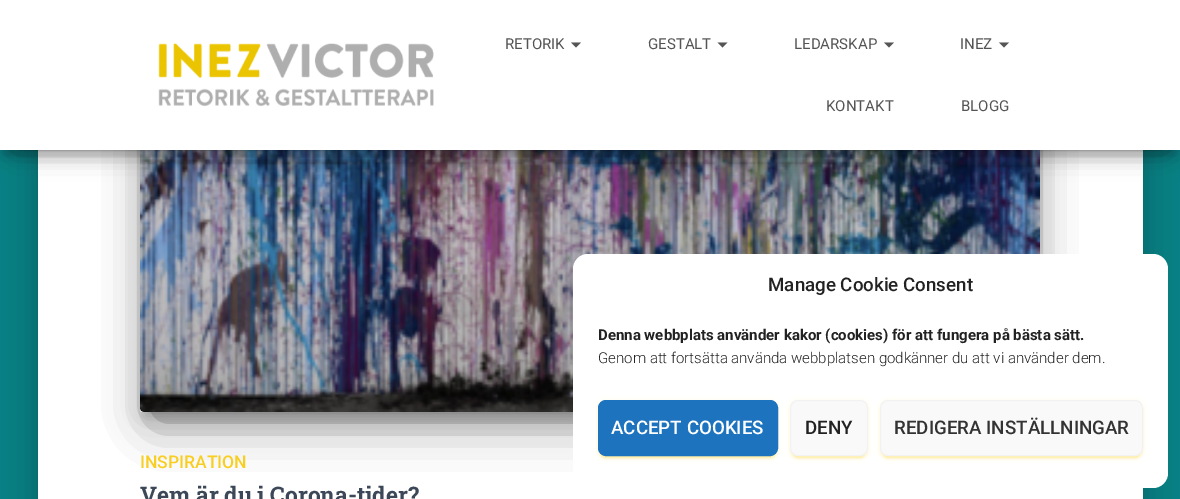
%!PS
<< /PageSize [1180 499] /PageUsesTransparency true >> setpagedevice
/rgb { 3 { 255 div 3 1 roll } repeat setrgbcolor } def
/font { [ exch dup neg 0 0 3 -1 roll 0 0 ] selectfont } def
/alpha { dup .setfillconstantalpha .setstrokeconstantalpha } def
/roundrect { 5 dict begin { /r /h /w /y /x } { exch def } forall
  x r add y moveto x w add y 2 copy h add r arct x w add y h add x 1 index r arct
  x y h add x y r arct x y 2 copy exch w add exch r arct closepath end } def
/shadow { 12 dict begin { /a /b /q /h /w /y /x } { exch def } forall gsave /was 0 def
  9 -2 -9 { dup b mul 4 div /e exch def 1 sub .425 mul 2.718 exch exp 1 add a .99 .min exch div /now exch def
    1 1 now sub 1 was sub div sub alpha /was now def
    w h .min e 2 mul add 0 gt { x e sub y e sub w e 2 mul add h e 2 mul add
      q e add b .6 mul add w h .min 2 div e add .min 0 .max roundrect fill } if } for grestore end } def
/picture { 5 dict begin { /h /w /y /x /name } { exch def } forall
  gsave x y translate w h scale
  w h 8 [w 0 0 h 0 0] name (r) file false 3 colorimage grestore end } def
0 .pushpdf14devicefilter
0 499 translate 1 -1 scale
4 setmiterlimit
8 130 135 rgb
0 0 1180 499 rectfill
0 0 0 rgb
44 -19 1092 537 1 6 0.2 shadow
31 -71 1118 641 14 19 0.12 shadow
35 -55 1110 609 10 15 0.14 shadow
255 255 255 rgb
38 150 1105 349 rectfill
0 0 0 rgb
146 -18 888 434 0 6 0.2 shadow
140 -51 900 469 4 15.5 0.12 shadow
155 -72 870 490 0 24 0.56 shadow
(img/2.rgb) 140 150 900 262 picture
6 16 1168 138 0 6 0.2 shadow
0 4 1180 150 0 12.5 0.12 shadow
15 28 1150 120 0 12.5 0.42 shadow
255 255 255 rgb
0 0 1180 150 rectfill
(img/1.rgb) 158 43 276 64 picture
85 85 85 rgb
571 42.5 moveto 581 42.5 lineto 576 47.5 lineto closepath fill
717.5 42.5 moveto 727.5 42.5 lineto 722.5 47.5 lineto closepath fill
884 42.5 moveto 894 42.5 lineto 889 47.5 lineto closepath fill
999 42.5 moveto 1009 42.5 lineto 1004 47.5 lineto closepath fill
255 255 255 rgb
573 254 595 234 15 roundrect fill
249 206 34 rgb
598 401 180 57 8 3 0.12 shadow
600 406 175 52 5 0.5 0.2 shadow
598 403 180 56 8 1 0.14 shadow
30 115 190 rgb
598.5 400.5 179 55 7.5 roundrect gsave fill grestore
stroke
249 206 34 rgb
790 401 78 57 8 3 0.12 shadow
793 406 72 52 5 0.5 0.2 shadow
790 403 78 56 8 1 0.14 shadow
249 249 249 rgb
790.5 400.5 77 55 7.5 roundrect gsave fill grestore
242 242 242 rgb
stroke
249 206 34 rgb
880 401 263 57 8 3 0.12 shadow
883 406 257 52 5 0.5 0.2 shadow
880 403 263 56 8 1 0.14 shadow
249 249 249 rgb
880.5 400.5 262 55 7.5 roundrect gsave fill grestore
242 242 242 rgb
stroke
/Roboto-Regular 15 font
85 85 85 rgb
[
  [(RETORIK) 505 49]
  [(GESTALT) 648 49]
  [(LEDARSKAP) 794 49]
  [(INEZ) 960 49]
  [(KONTAKT) 826 111]
  [(BLOGG) 961 111]
] { aload pop moveto show } forall
/Roboto-Medium 17.5 font
249 206 34 rgb
140 468 moveto (INSPIRATION) show
/RobotoSlab-Bold 22.75 font
60 72 88 rgb
140 503 moveto (Vem är du i Corona-tider?) show
/Roboto-Medium 18.75 font
34 34 34 rgb
768 291 moveto (Manage Cookie Consent) show
/Roboto-Bold 15 font
598 340 moveto (Denna webbplats använder kakor \(cookies\) för att fungera på bästa sätt.) show
/Roboto-Light 15 font
598 363 moveto (Genom att fortsätta använda webbplatsen godkänner du att vi använder dem.) show
/Roboto-Medium 18.75 font
255 255 255 rgb
611 434 moveto (ACCEPT COOKIES) show
34 34 34 rgb
805 434 moveto (DENY) show
51 51 51 rgb
894 434 moveto (REDIGERA INSTÄLLNINGAR) show
.poppdf14devicefilter showpage
